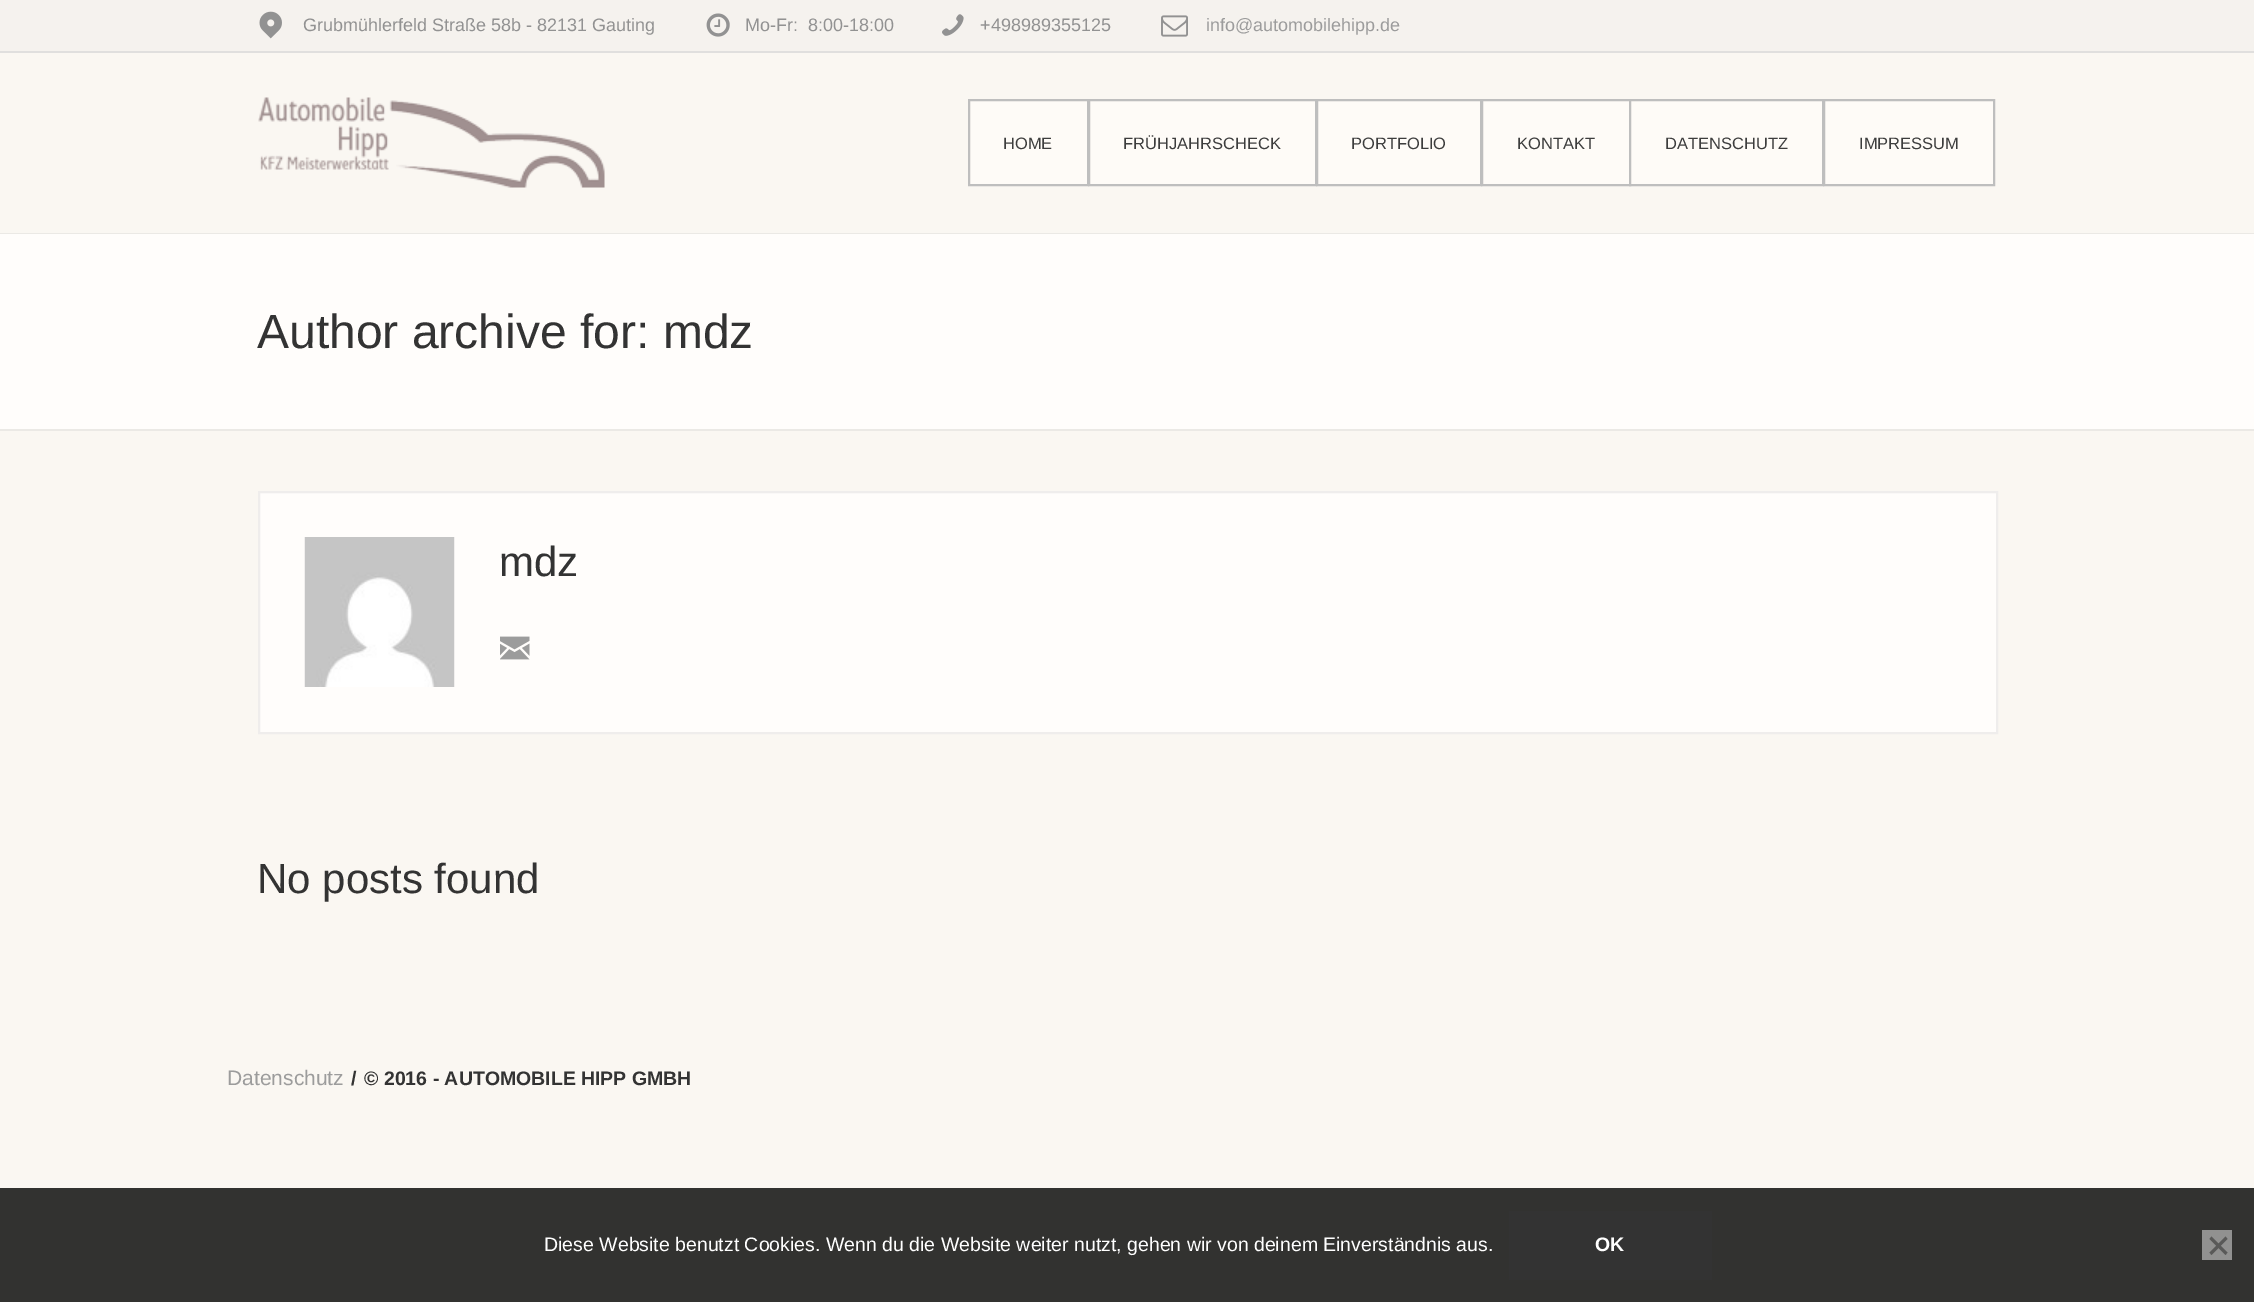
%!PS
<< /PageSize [2254 1302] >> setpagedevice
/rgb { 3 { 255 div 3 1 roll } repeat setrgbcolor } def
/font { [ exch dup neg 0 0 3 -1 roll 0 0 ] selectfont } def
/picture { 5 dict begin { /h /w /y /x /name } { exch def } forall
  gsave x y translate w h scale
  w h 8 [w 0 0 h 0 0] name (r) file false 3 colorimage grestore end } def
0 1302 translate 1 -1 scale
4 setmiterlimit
250 247 242 rgb
0 0 2254 1302 rectfill
245 242 238 rgb
0 0 2254 51 rectfill
224 223 222 rgb
0 51 2254 2 rectfill
(img/1.rgb) 259 11 23 28 picture
(img/2.rgb) 706 13 24 24 picture
(img/3.rgb) 942 14 22 22 picture
(img/4.rgb) 1161 15 27 22 picture
(img/5.rgb) 258 97 347 91 picture
254 251 247 rgb
969 100 moveto 1088 100 lineto 1088 185 lineto 969 185 lineto closepath gsave fill grestore
190 190 190 rgb
2 setlinewidth
stroke
254 251 247 rgb
1089 100 moveto 1316 100 lineto 1316 185 lineto 1089 185 lineto closepath gsave fill grestore
190 190 190 rgb
stroke
254 251 247 rgb
1317 100 moveto 1481 100 lineto 1481 185 lineto 1317 185 lineto closepath gsave fill grestore
190 190 190 rgb
stroke
254 251 247 rgb
1482 100 moveto 1630 100 lineto 1630 185 lineto 1482 185 lineto closepath gsave fill grestore
190 190 190 rgb
stroke
254 251 247 rgb
1630 100 moveto 1823 100 lineto 1823 185 lineto 1630 185 lineto closepath gsave fill grestore
190 190 190 rgb
stroke
254 251 247 rgb
1824 100 moveto 1994 100 lineto 1994 185 lineto 1824 185 lineto closepath gsave fill grestore
190 190 190 rgb
stroke
[
  [0 233 2254 1 235 233 229]
  [0 429 2254 2 235 233 229]
  [0 234 2254 195 255 253 251]
] { aload pop rgb rectfill } forall
259 492 moveto 1997 492 lineto 1997 733 lineto 259 733 lineto closepath gsave fill grestore
239 237 236 rgb
stroke
(img/6.rgb) 304 537 151 150 picture
(img/7.rgb) 500 636 30 24 picture
[
  [0 1188 2254 114 50 50 48]
  [1509 1211 203 69 51 51 51]
  [2202 1230 30 30 145 145 144]
] { aload pop rgb rectfill } forall
89 89 88 rgb
2225.5 1236.5 moveto 2227.5 1239 lineto 2211.5 1255 lineto 2209.5 1252.5 lineto closepath fill
2209.5 1239 moveto 2211.5 1236.5 lineto 2227.5 1252.5 lineto 2225.5 1255 lineto closepath fill
/LiberationSans-Regular 18 font
146 146 146 rgb
[
  [(Grubmühlerfeld Straße 58b - 82131 Gauting) 303 31]
  [(Mo-Fr:  8:00-18:00) 745 31]
  [(+498989355125) 980 31]
] { aload pop moveto show } forall
156 156 156 rgb
1206 31 moveto (info@automobilehipp.de) show
/LiberationSans-Regular 16.5 font
61 61 61 rgb
[
  [(HOME) 1003 149]
  [(FRÜHJAHRSCHECK) 1123 149]
  [(PORTFOLIO) 1351 149]
  [(KONTAKT) 1517 149]
  [(DATENSCHUTZ) 1665 149]
  [(IMPRESSUM) 1859 149]
] { aload pop moveto show } forall
/LiberationSans-Regular 48 font
51 51 51 rgb
257 348 moveto (Author archive for: mdz) show
/LiberationSans-Regular 42 font
499 576 moveto (mdz) show
257 893 moveto (No posts found) show
/LiberationSans-Regular 21 font
156 156 156 rgb
227 1085 moveto (Datenschutz) show
/LiberationSans-Bold 19.5 font
51 51 51 rgb
351 1085 moveto (/) show
364 1085 moveto (© 2016 - AUTOMOBILE HIPP GMBH) show
/LiberationSans-Regular 19.5 font
255 255 255 rgb
544 1251 moveto (Diese Website benutzt Cookies. Wenn du die Website weiter nutzt, gehen wir von deinem Einverständnis aus.) show
/LiberationSans-Bold 19.5 font
1595 1251 moveto (OK) show
showpage
